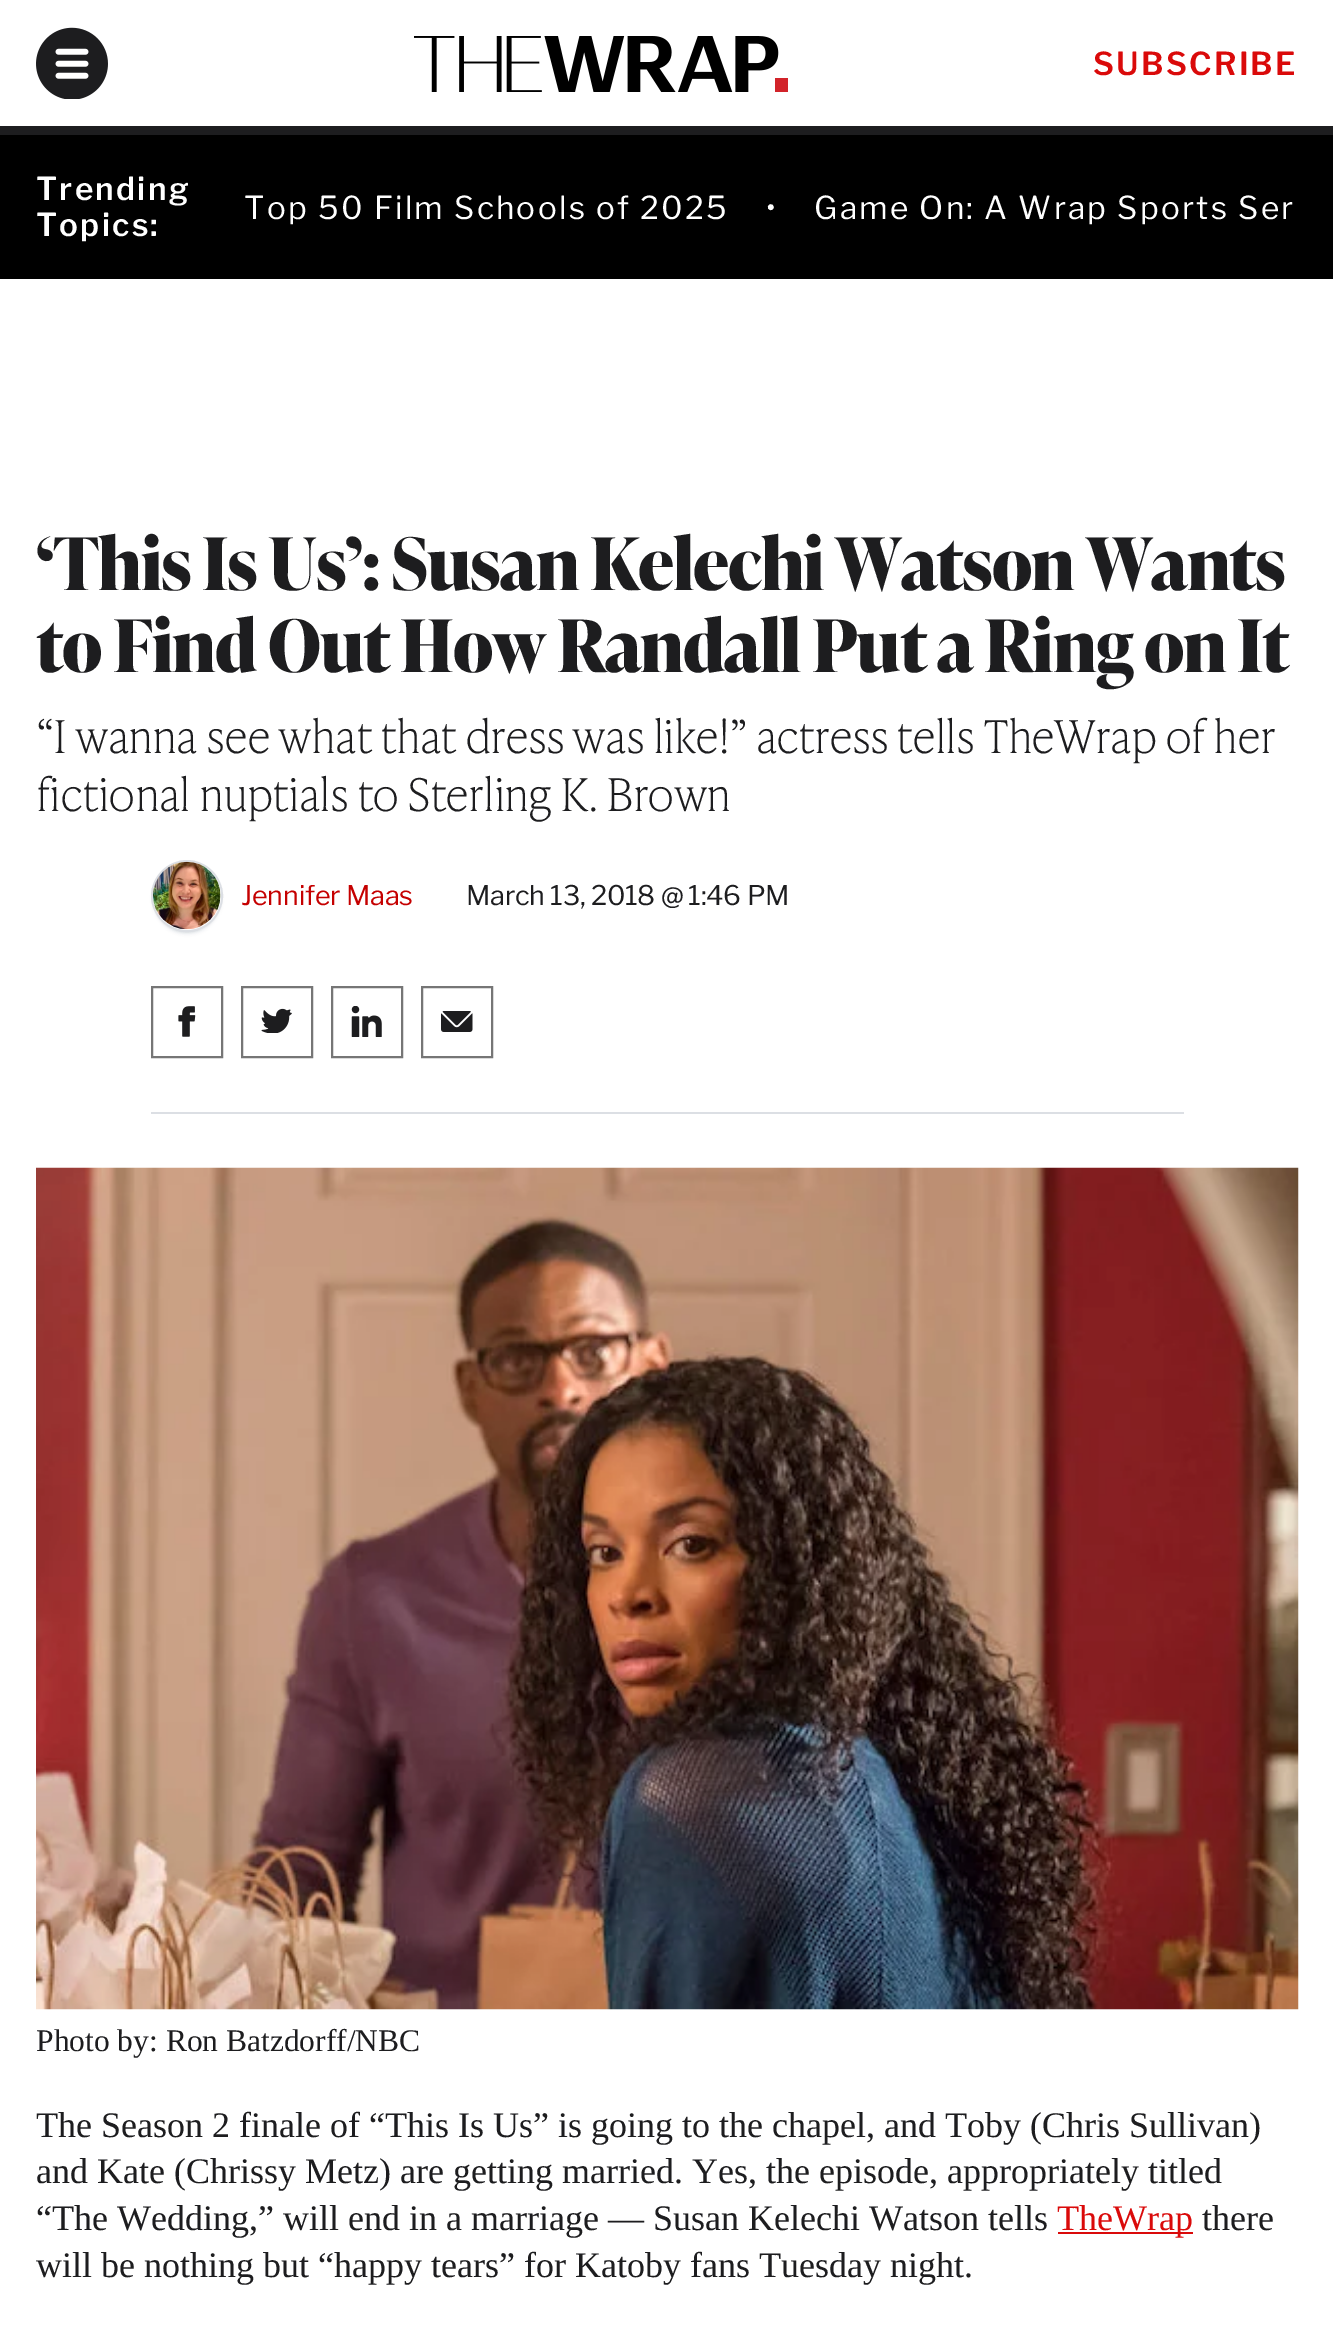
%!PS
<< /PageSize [1333 2332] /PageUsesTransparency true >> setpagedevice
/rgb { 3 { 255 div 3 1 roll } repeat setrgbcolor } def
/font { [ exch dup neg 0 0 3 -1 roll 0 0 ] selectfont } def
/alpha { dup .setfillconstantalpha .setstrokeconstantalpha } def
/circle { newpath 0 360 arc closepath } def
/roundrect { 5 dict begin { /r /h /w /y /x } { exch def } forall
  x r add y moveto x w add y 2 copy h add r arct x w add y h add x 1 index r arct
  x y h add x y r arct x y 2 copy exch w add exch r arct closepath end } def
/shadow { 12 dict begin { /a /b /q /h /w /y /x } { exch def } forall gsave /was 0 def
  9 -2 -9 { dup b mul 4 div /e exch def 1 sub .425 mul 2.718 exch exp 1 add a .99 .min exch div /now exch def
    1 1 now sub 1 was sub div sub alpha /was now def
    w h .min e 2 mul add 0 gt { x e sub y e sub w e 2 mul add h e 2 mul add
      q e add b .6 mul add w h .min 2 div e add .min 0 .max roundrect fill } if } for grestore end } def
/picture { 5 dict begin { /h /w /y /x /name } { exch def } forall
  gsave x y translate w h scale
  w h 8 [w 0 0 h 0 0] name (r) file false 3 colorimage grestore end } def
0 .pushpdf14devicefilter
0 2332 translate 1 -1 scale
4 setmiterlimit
255 255 255 rgb
0 0 1333 2332 rectfill
29 29 31 rgb
0 126 1333 9 rectfill
(img/1.rgb) 36 27 72 72 picture
(img/2.rgb) 414 36 374 56 picture
0 0 0 rgb
0 135 1333 144 rectfill
220 223 228 rgb
151 1112 1033 2 rectfill
24 39 75 rgb
153 864 68 70 34 1.5 0.08 shadow
153 862 68 70 34 1 0.12 shadow
220 223 228 rgb
2 setlinewidth
187 896 35 circle stroke
(img/3.rgb) 153 861 68 69 picture
118 118 118 rgb
152 987 70 70 rectstroke
(img/4.rgb) 178 1006 18 31 picture
242 987 70 70 rectstroke
(img/5.rgb) 261 1008 31 25 picture
332 987 70 70 rectstroke
(img/6.rgb) 351 1006 31 31 picture
422 987 70 70 rectstroke
(img/7.rgb) 441 1011 32 21 picture
(img/8.rgb) 36 1167 1263 843 picture
218 10 10 rgb
1058 2232 135 2 rectfill
/LibreFranklin-SemiBold 31.5 font
1093 75 moveto 2.25 0 (SUBSCRIBE) ashow
255 255 255 rgb
36 200 moveto 2.25 0 (Trending) ashow
36 236 moveto 2.25 0 (Topics:) ashow
/LibreFranklin-Regular 31.5 font
244 219 moveto 2.25 0 (Top 50 Film Schools of 2025) ashow
766 219 moveto 2.25 0 (•) ashow
814 219 moveto 2.25 0 (Game On: A Wrap Sports Ser) ashow
/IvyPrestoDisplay-Bold 72 font
29 29 31 rgb
36 590 moveto -1.12 0 (‘This Is Us’: Susan Kelechi Watson Wants) ashow
36 672 moveto -1.12 0 (to Find Out How Randall Put a Ring on It) ashow
/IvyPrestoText-Thin 45 font
36 753 moveto -1.12 0 (“I wanna see what that dress was like!” actress tells TheWrap of her) ashow
36 811 moveto -1.12 0 (fictional nuptials to Sterling K. Brown) ashow
/LibreFranklin-Regular 27 font
197 0 0 rgb
241 905 moveto -0.25 0 (Jennifer Maas) ashow
29 29 31 rgb
466 905 moveto -0.25 0 (March 13, 2018 @ 1:46 PM) ashow
/LiberationSerif-Regular 31.5 font
36 2051 moveto (Photo by: Ron Batzdorff/NBC) show
/LiberationSerif-Regular 36 font
[
  [(The Season 2 finale of “This Is Us” is going to the chapel, and Toby \(Chris Sullivan\)) 36 2137]
  [(and Kate \(Chrissy Metz\) are getting married. Yes, the episode, appropriately titled) 36 2183]
  [(“The Wedding,” will end in a marriage — Susan Kelechi Watson tells) 36 2230]
] { aload pop moveto show } forall
218 10 10 rgb
1057 2230 moveto (TheWrap) show
29 29 31 rgb
1202 2230 moveto (there) show
36 2277 moveto (will be nothing but “happy tears” for Katoby fans Tuesday night.) show
.poppdf14devicefilter showpage
